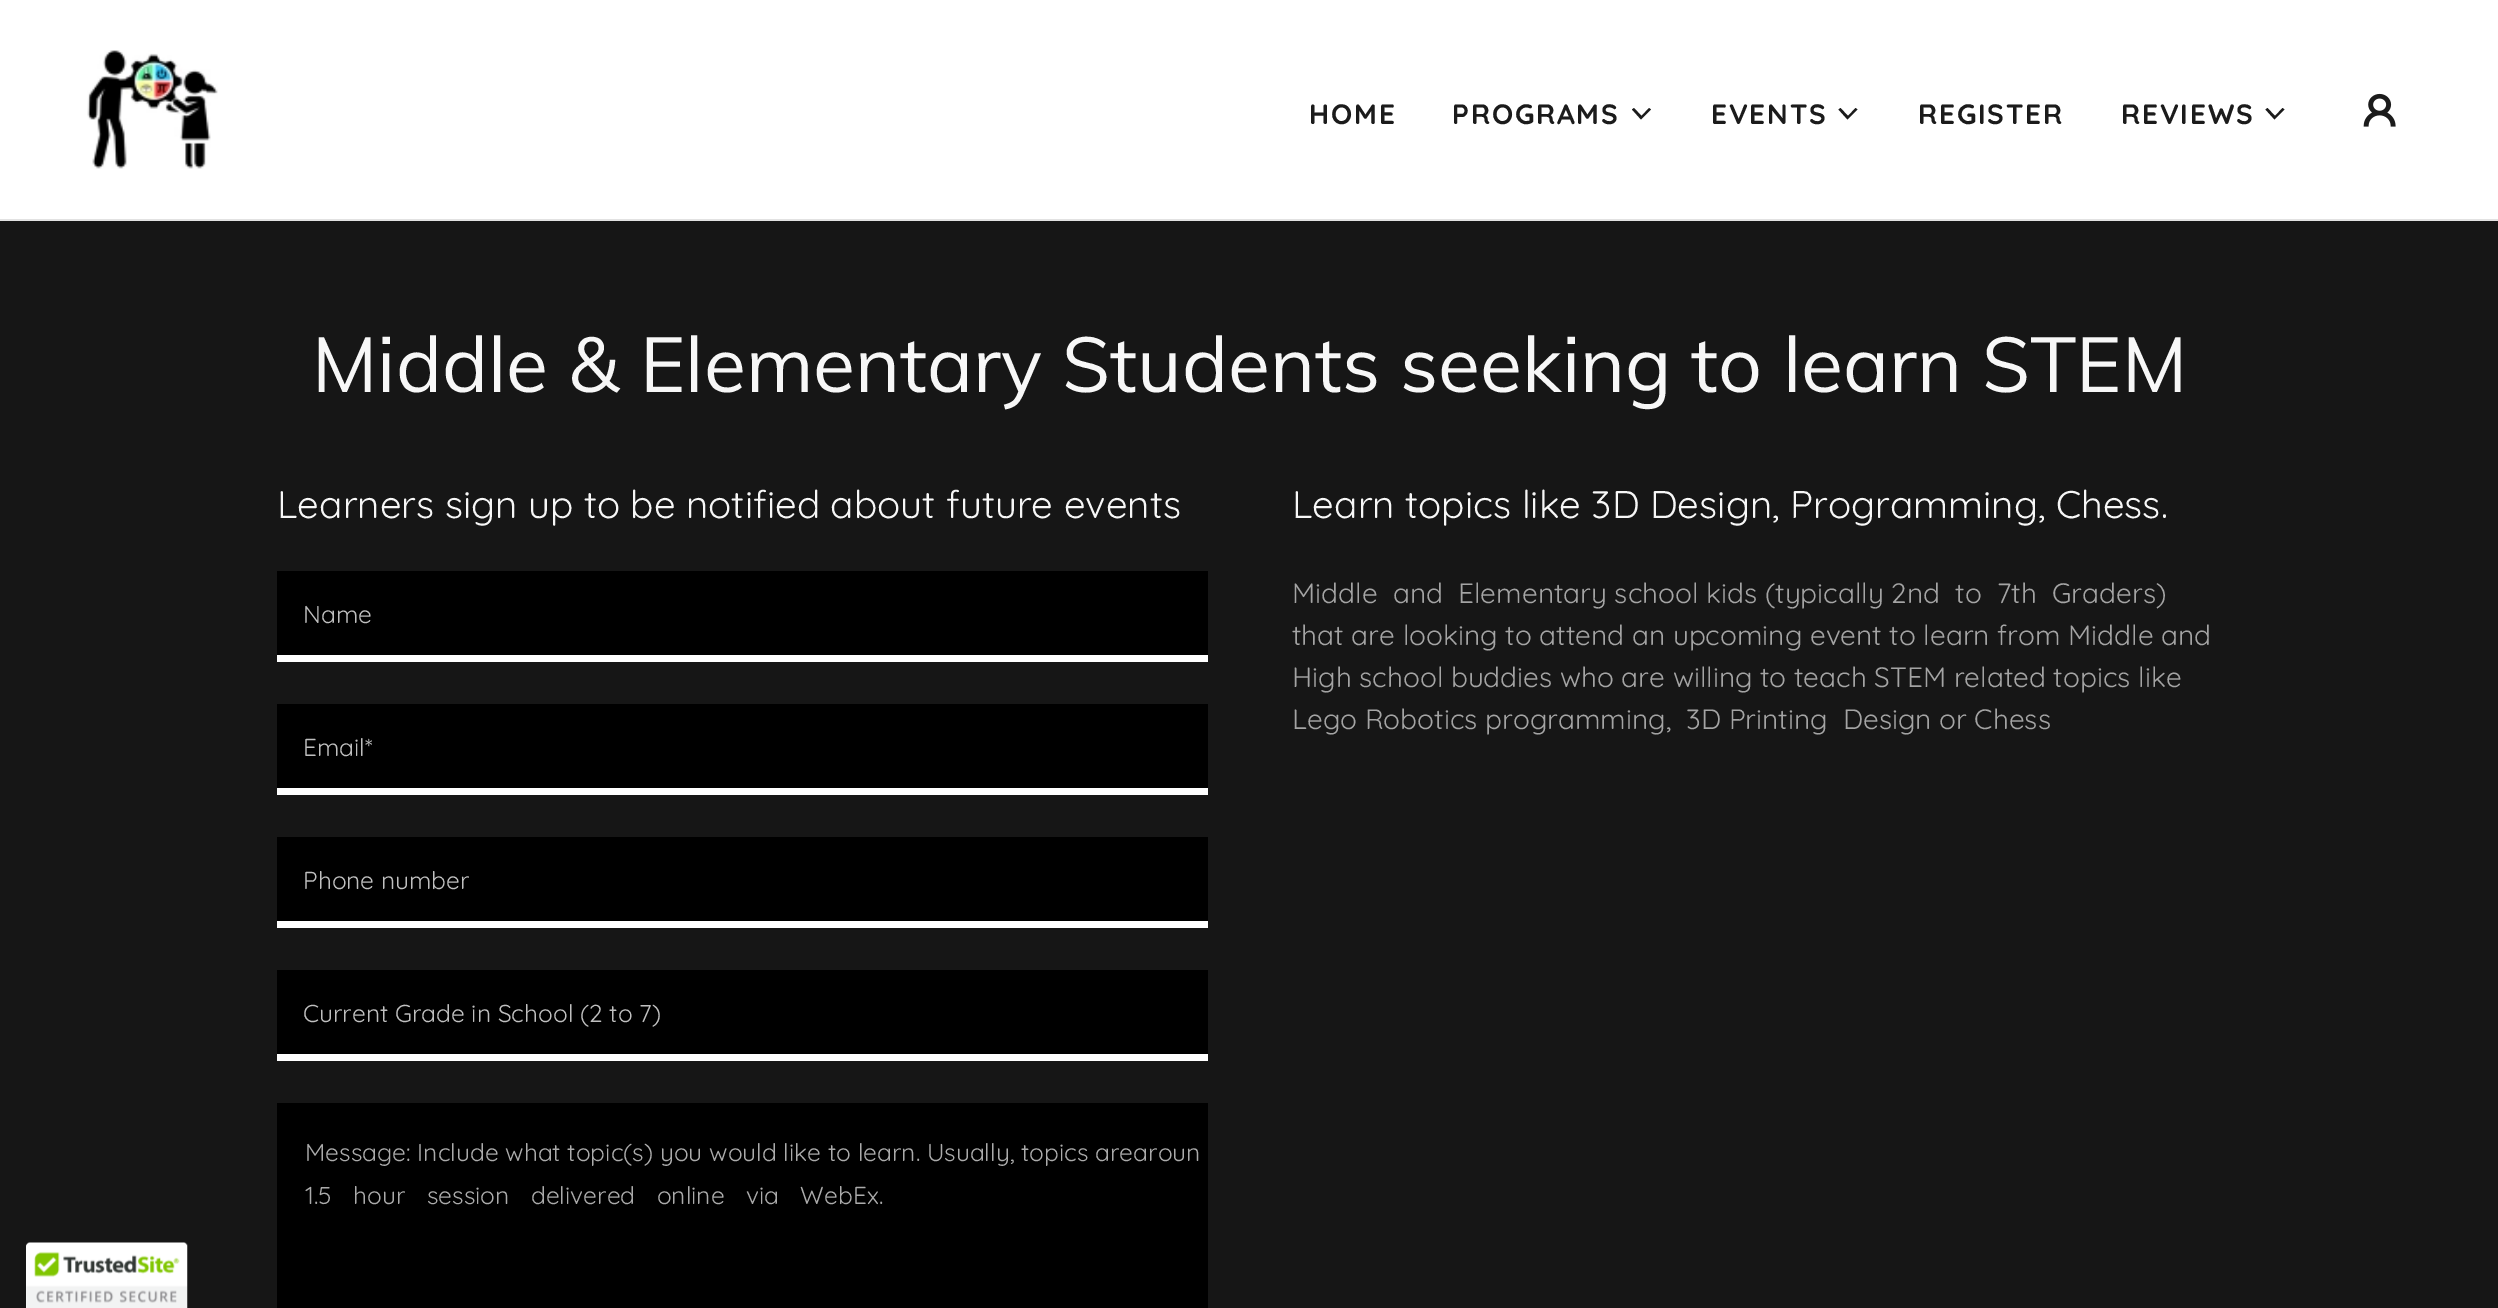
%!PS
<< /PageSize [2498 1308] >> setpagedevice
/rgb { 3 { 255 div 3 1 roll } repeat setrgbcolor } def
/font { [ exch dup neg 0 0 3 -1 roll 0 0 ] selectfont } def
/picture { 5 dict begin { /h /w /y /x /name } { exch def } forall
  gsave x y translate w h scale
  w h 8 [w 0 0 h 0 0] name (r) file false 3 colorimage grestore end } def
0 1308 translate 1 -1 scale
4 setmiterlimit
22 22 22 rgb
0 0 2498 1308 rectfill
255 255 255 rgb
0 0 2498 219 rectfill
(img/1.rgb) 87 50 131 119 picture
27 27 27 rgb
1649 108 moveto 1641.5 116 lineto 1634 108 lineto 1632 109.5 lineto 1641 119.5 lineto 1651 109.5 lineto closepath eofill
1855.5 108 moveto 1848 116 lineto 1840.5 108 lineto 1838.5 109.5 lineto 1847.5 119.5 lineto 1857.5 109.5 lineto closepath eofill
2282.5 108 moveto 2275 116 lineto 2267.5 108 lineto 2265.5 109.5 lineto 2274.5 119.5 lineto 2284.5 109.5 lineto closepath eofill
(img/2.rgb) 2363 93 33 34 picture
[
  [0 219 2498 2 226 226 226]
  [277 571 931 84 0 0 0]
  [277 655 931 7 255 255 255]
  [277 704 931 84 0 0 0]
  [277 788 931 7 255 255 255]
  [277 837 931 84 0 0 0]
  [277 921 931 7 255 255 255]
  [277 970 931 84 0 0 0]
  [277 1054 931 7 255 255 255]
  [277 1103 931 205 0 0 0]
] { aload pop rgb rectfill } forall
(img/3.rgb) 26 1242 162 66 picture
/Quicksand-Bold 28 font
27 27 27 rgb
1309 124 moveto 1.75 0 (HOME) ashow
1452 124 moveto 1.75 0 (PROGRAMS) ashow
1711 124 moveto 1.75 0 (EVENTS) ashow
1918 124 moveto 1.75 0 (REGISTER) ashow
2121 124 moveto 1.75 0 (REVIEWS) ashow
/Muli-Regular 77 font
247 247 247 rgb
312 392 moveto (Middle & Elementary Students seeking to learn STEM) show
/Quicksand-Regular 38.5 font
277 518 moveto (Learners sign up to be notified about future events) show
/Quicksand-Regular 24.5 font
191 191 191 rgb
[
  [(Name) 303 623]
  [(Email*) 303 756]
  [(Phone number) 303 889]
  [(Current Grade in School \(2 to 7\)) 303 1022]
] { aload pop moveto show } forall
171 171 171 rgb
305 1161 moveto (Message: Include what topic\(s\) you would like to learn. Usually, topics arearoun) show
305 1204 moveto 14.75 0 32 (1.5 hour session delivered online via WebEx.) widthshow
/Quicksand-Regular 38.5 font
247 247 247 rgb
1292 518 moveto (Learn topics like 3D Design, Programming, Chess.) show
/Quicksand-Regular 28 font
164 164 164 rgb
[
  [(Middle  and  Elementary school kids \(typically 2nd  to  7th  Graders\)) 1292 603]
  [(that are looking to attend an upcoming event to learn from Middle and) 1292 645]
  [(High school buddies who are willing to teach STEM related topics like) 1292 687]
  [(Lego Robotics programming,  3D Printing  Design or Chess) 1292 729]
] { aload pop moveto show } forall
showpage
